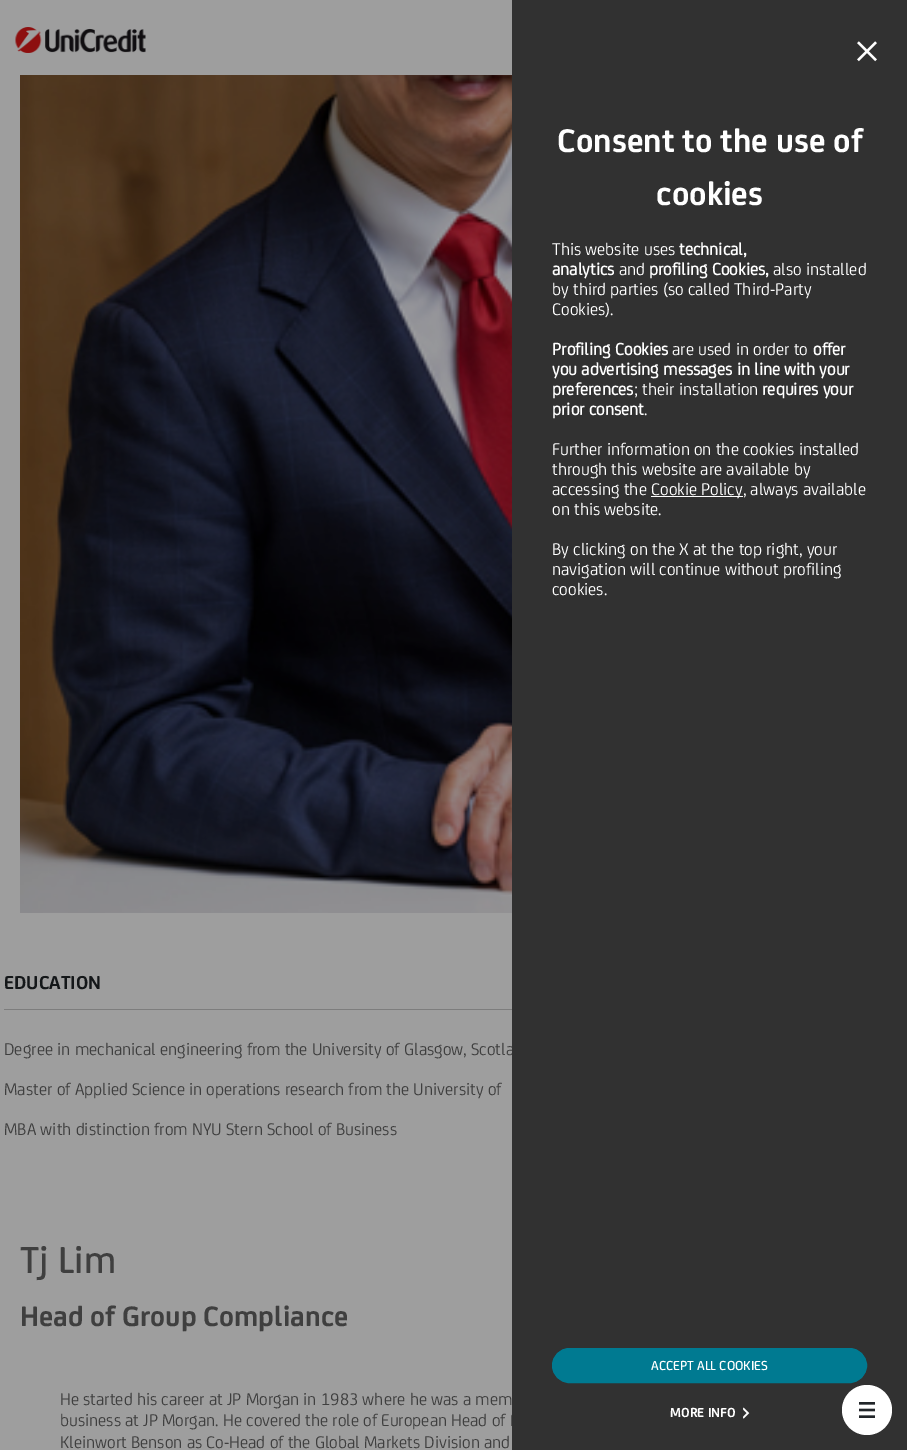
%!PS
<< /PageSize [907 1450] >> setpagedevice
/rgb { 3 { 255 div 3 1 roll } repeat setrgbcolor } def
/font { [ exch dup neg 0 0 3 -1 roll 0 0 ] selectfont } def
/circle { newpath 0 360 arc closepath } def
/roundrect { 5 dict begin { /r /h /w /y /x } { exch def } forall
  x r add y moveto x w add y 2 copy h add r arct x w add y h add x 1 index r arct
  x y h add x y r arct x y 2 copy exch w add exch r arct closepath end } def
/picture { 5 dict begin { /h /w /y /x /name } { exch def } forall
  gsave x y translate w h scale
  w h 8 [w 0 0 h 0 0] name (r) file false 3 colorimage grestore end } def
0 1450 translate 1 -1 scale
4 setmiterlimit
158 158 158 rgb
0 0 907 1450 rectfill
(img/1.rgb) 15 27 131 26 picture
(img/3.rgb) 20 75 492 838 picture
125 125 125 rgb
4 1009 508 1 rectfill
/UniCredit-Bold 20 font
20 23 25 rgb
4 989 moveto (EDUCATION) show
/UniCredit-Regular 18 font
63 63 63 rgb
[
  [(Degree in mechanical engineering from the University of Glasgow, Scotla) 4 1055]
  [(Master of Applied Science in operations research from the University of) 4 1095]
  [(MBA with distinction from NYU Stern School of Business) 4 1135]
] { aload pop moveto show } forall
/UniCredit-Medium 40 font
20 1273 moveto (Tj Lim) show
/UniCredit-Bold 30 font
20 1326 moveto (Head of Group Compliance) show
/UniCredit-Regular 18 font
[
  [(He started his career at JP Morgan in 1983 where he was a mem) 60 1405]
  [(business at JP Morgan. He covered the role of European Head of F) 60 1426]
  [(Kleinwort Benson as Co-Head of the Global Markets Division and) 60 1448]
] { aload pop moveto show } forall
49 49 49 rgb
512 0 395 1450 rectfill
255 255 255 rgb
867 1410 25 circle fill
(img/2.rgb) 859 1402 16 16 picture
(img/4.rgb) 857 41 20 21 picture
/UniCredit-Bold 35 font
557 152 moveto (Consent to the use of) show
656 205 moveto (cookies) show
/UniCredit-Regular 18 font
552 255 moveto (This website uses) show
/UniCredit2-Bold 18 font
679 255 moveto (technical,) show
552 275 moveto (analytics) show
/UniCredit-Regular 18 font
619 275 moveto (and) show
/UniCredit2-Bold 18 font
649 275 moveto (profiling Cookies,) show
/UniCredit-Regular 18 font
[
  [(also installed) 773 275]
  [(by third parties \(so called Third-Party) 552 295]
  [(Cookies\).) 552 315]
] { aload pop moveto show } forall
/UniCredit2-Bold 18 font
552 355 moveto (Profiling Cookies) show
/UniCredit-Regular 18 font
672 355 moveto (are used in order to) show
/UniCredit2-Bold 18 font
[
  [(offer) 813 355]
  [(you advertising messages in line with your) 552 375]
  [(preferences) 552 395]
] { aload pop moveto show } forall
/UniCredit-Regular 18 font
634 395 moveto (; their installation) show
/UniCredit2-Bold 18 font
762 395 moveto (requires your) show
552 415 moveto (prior consent) show
/UniCredit-Regular 18 font
[
  [(.) 644 415]
  [(Further information on the cookies installed) 552 455]
  [(through this website are available by) 552 475]
  [(accessing the) 552 495]
] { aload pop moveto show } forall
651 496 92 1 rectfill
[
  [(Cookie Policy, always available) 651 495]
  [(on this website.) 552 515]
  [(By clicking on the X at the top right, your) 552 555]
  [(navigation will continue without profiling) 552 575]
  [(cookies.) 552 595]
] { aload pop moveto show } forall
0 122 145 rgb
552.5 1348.5 314 34 17 roundrect gsave fill grestore
stroke
/UniCredit-Medium 14 font
255 255 255 rgb
651 1370 moveto (ACCEPT ALL COOKIES) show
/UniCredit-Bold 14 font
670 1417 moveto (MORE INFO) show
(img/5.rgb) 743 1407 7 12 picture
showpage
